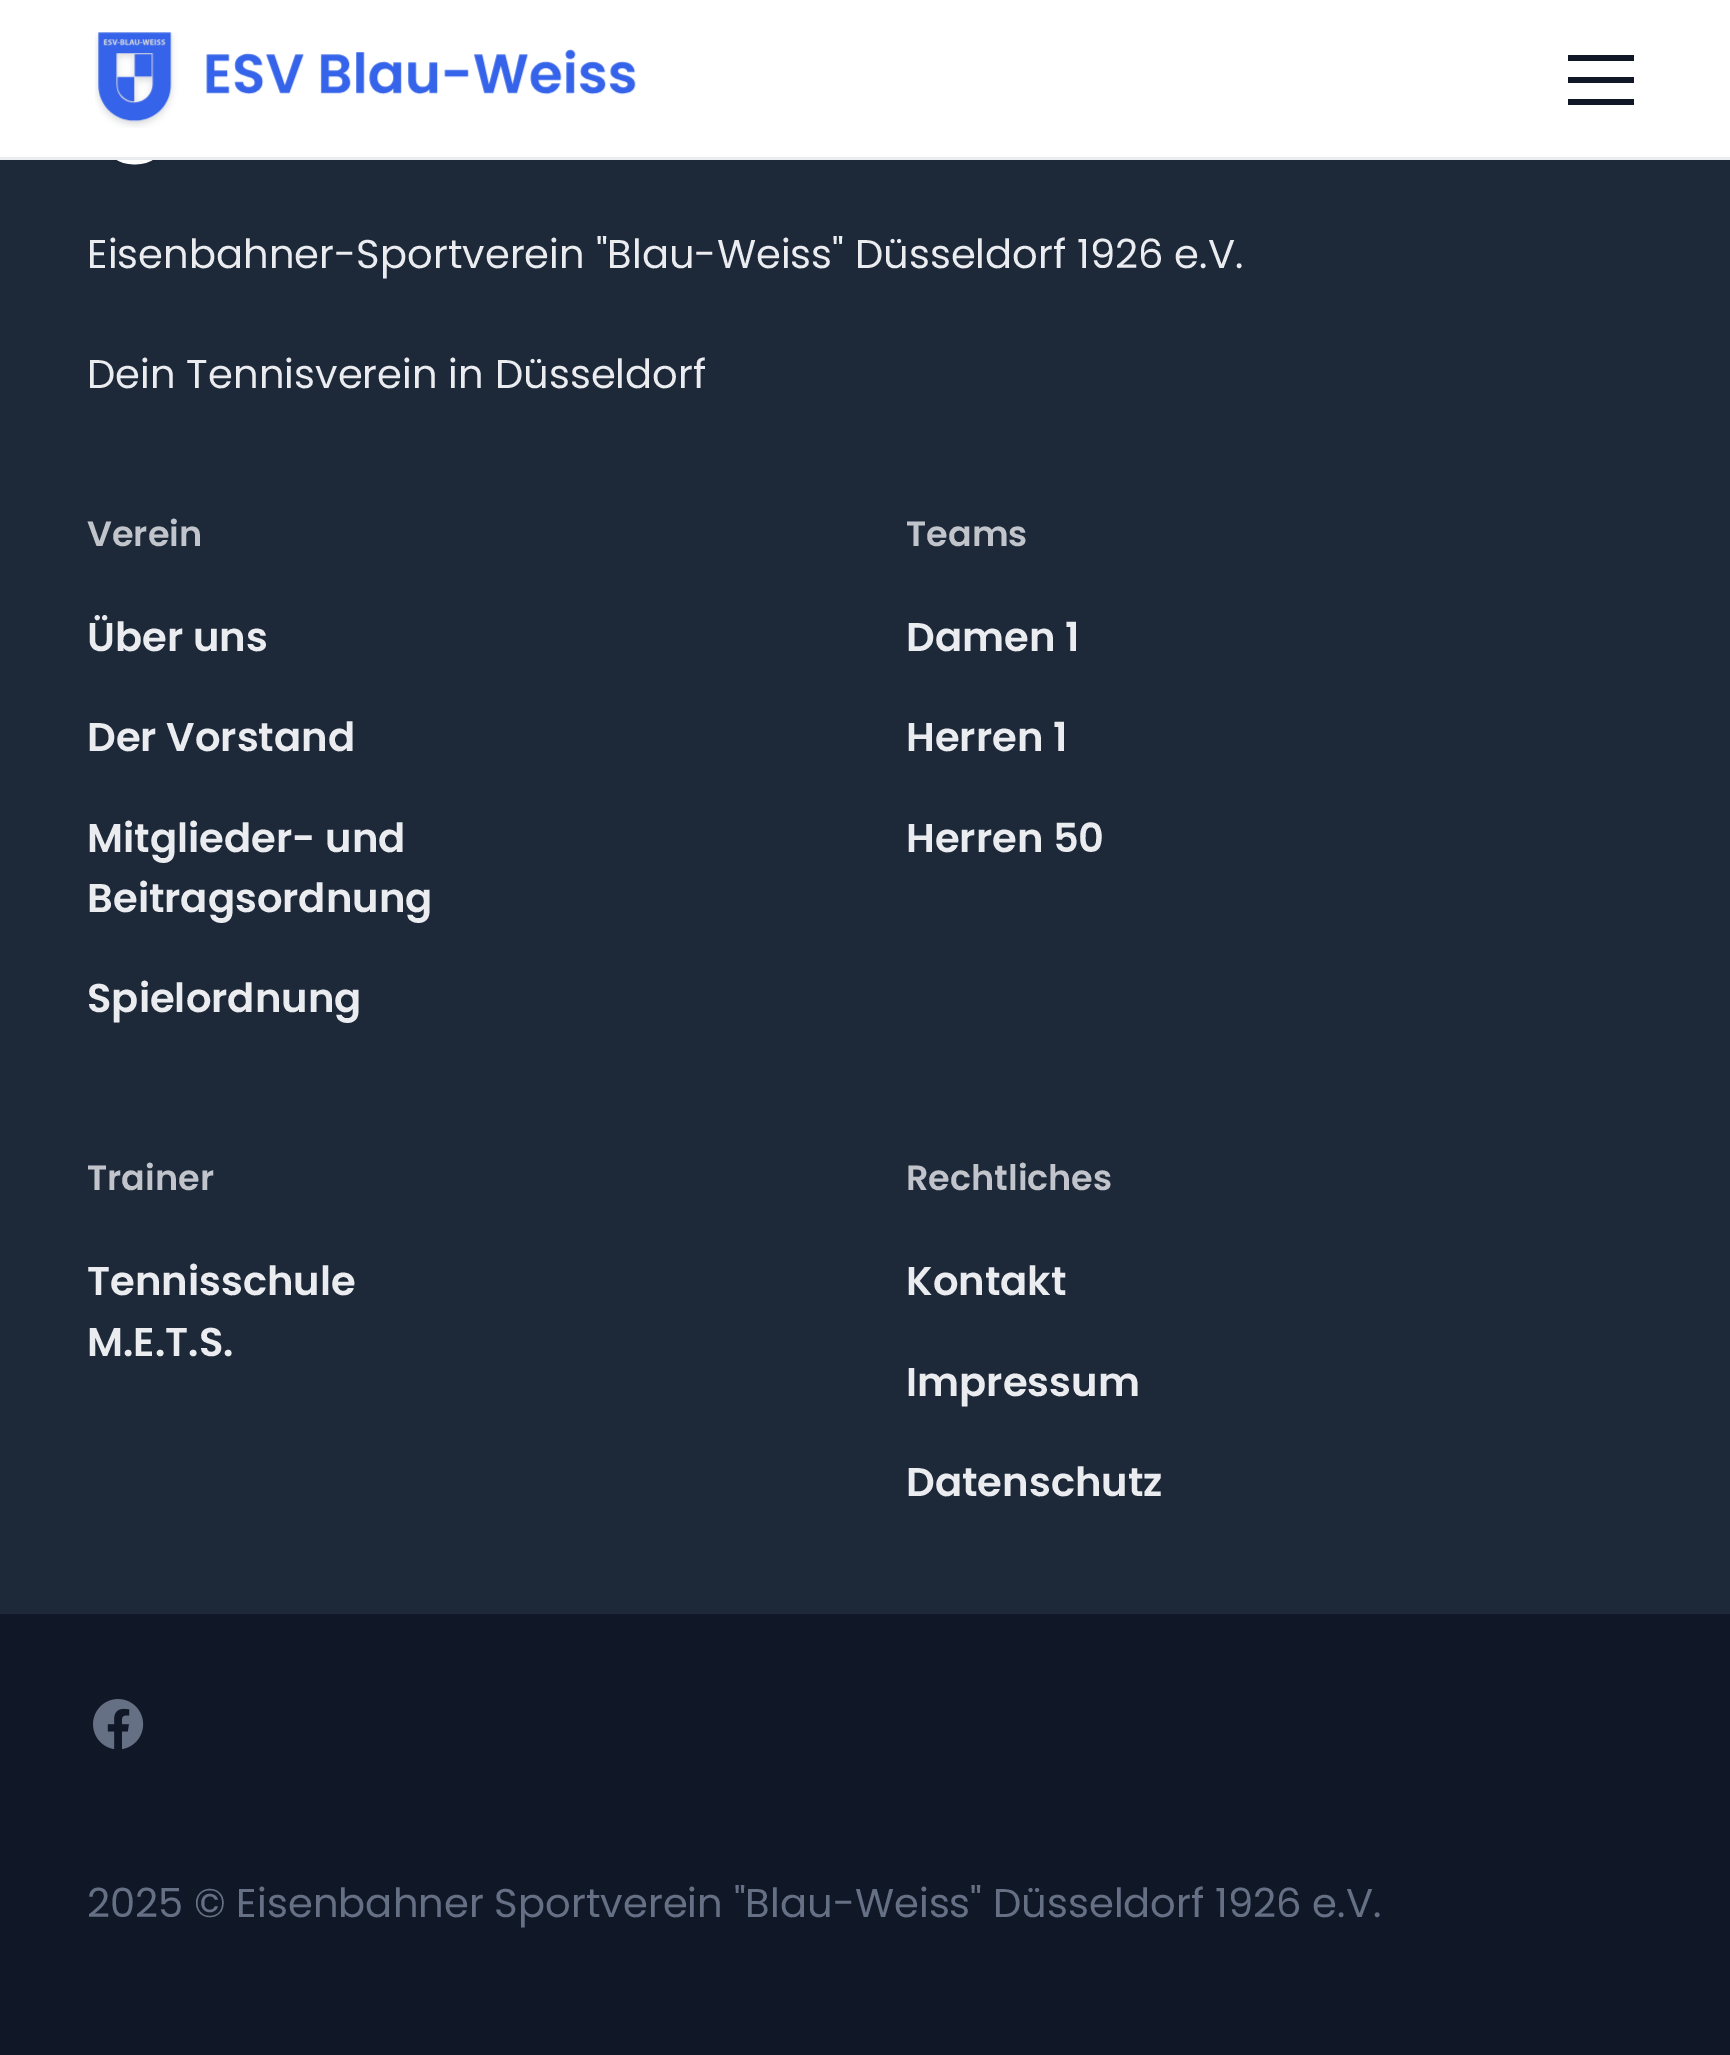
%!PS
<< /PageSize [1730 2055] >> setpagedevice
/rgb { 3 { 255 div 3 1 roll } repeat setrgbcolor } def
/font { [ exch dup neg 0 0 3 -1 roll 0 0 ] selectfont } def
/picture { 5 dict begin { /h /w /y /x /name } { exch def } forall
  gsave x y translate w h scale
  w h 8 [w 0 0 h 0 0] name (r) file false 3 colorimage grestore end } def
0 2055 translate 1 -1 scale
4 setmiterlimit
29 41 57 rgb
0 0 1730 2055 rectfill
255 255 255 rgb
0 0 1730 157 rectfill
234 236 240 rgb
0 157 1730 3 rectfill
(img/1.rgb) 95 32 541 96 picture
[
  [1568 55 66 6 16 24 40]
  [1568 77 66 6 16 24 40]
  [1568 99 66 6 16 24 40]
] { aload pop rgb rectfill } forall
(img/2.rgb) 106 160 57 5 picture
0 1614 1730 441 rectfill
(img/3.rgb) 93 1699 51 51 picture
/Poppins-Regular 40.1 font
234 236 240 rgb
87 268 moveto (Eisenbahner-Sportverein "Blau-Weiss" Düsseldorf 1926 e.V.) show
87 388 moveto (Dein Tennisverein in Düsseldorf) show
/Poppins-SemiBold 35 font
193 197 203 rgb
87 546 moveto (Verein) show
/Poppins-SemiBold 40.1 font
234 236 240 rgb
[
  [(Über uns) 87 651]
  [(Der Vorstand) 87 751]
  [(Mitglieder- und) 87 852]
  [(Beitragsordnung) 87 912]
  [(Spielordnung) 87 1012]
] { aload pop moveto show } forall
/Poppins-SemiBold 35 font
193 197 203 rgb
906 546 moveto (Teams) show
/Poppins-SemiBold 40.1 font
234 236 240 rgb
[
  [(Damen 1) 906 651]
  [(Herren 1) 906 751]
  [(Herren 50) 906 852]
] { aload pop moveto show } forall
/Poppins-SemiBold 35 font
193 197 203 rgb
87 1190 moveto (Trainer) show
/Poppins-SemiBold 40.1 font
234 236 240 rgb
87 1295 moveto (Tennisschule) show
87 1356 moveto (M.E.T.S.) show
/Poppins-SemiBold 35 font
193 197 203 rgb
906 1190 moveto (Rechtliches) show
/Poppins-SemiBold 40.1 font
234 236 240 rgb
[
  [(Kontakt) 906 1295]
  [(Impressum) 906 1396]
  [(Datenschutz) 906 1496]
] { aload pop moveto show } forall
/Poppins-Regular 40.1 font
102 112 133 rgb
87 1917 moveto (2025) show
194 1917 moveto (© Eisenbahner Sportverein "Blau-Weiss" Düsseldorf 1926 e.V.) show
showpage
